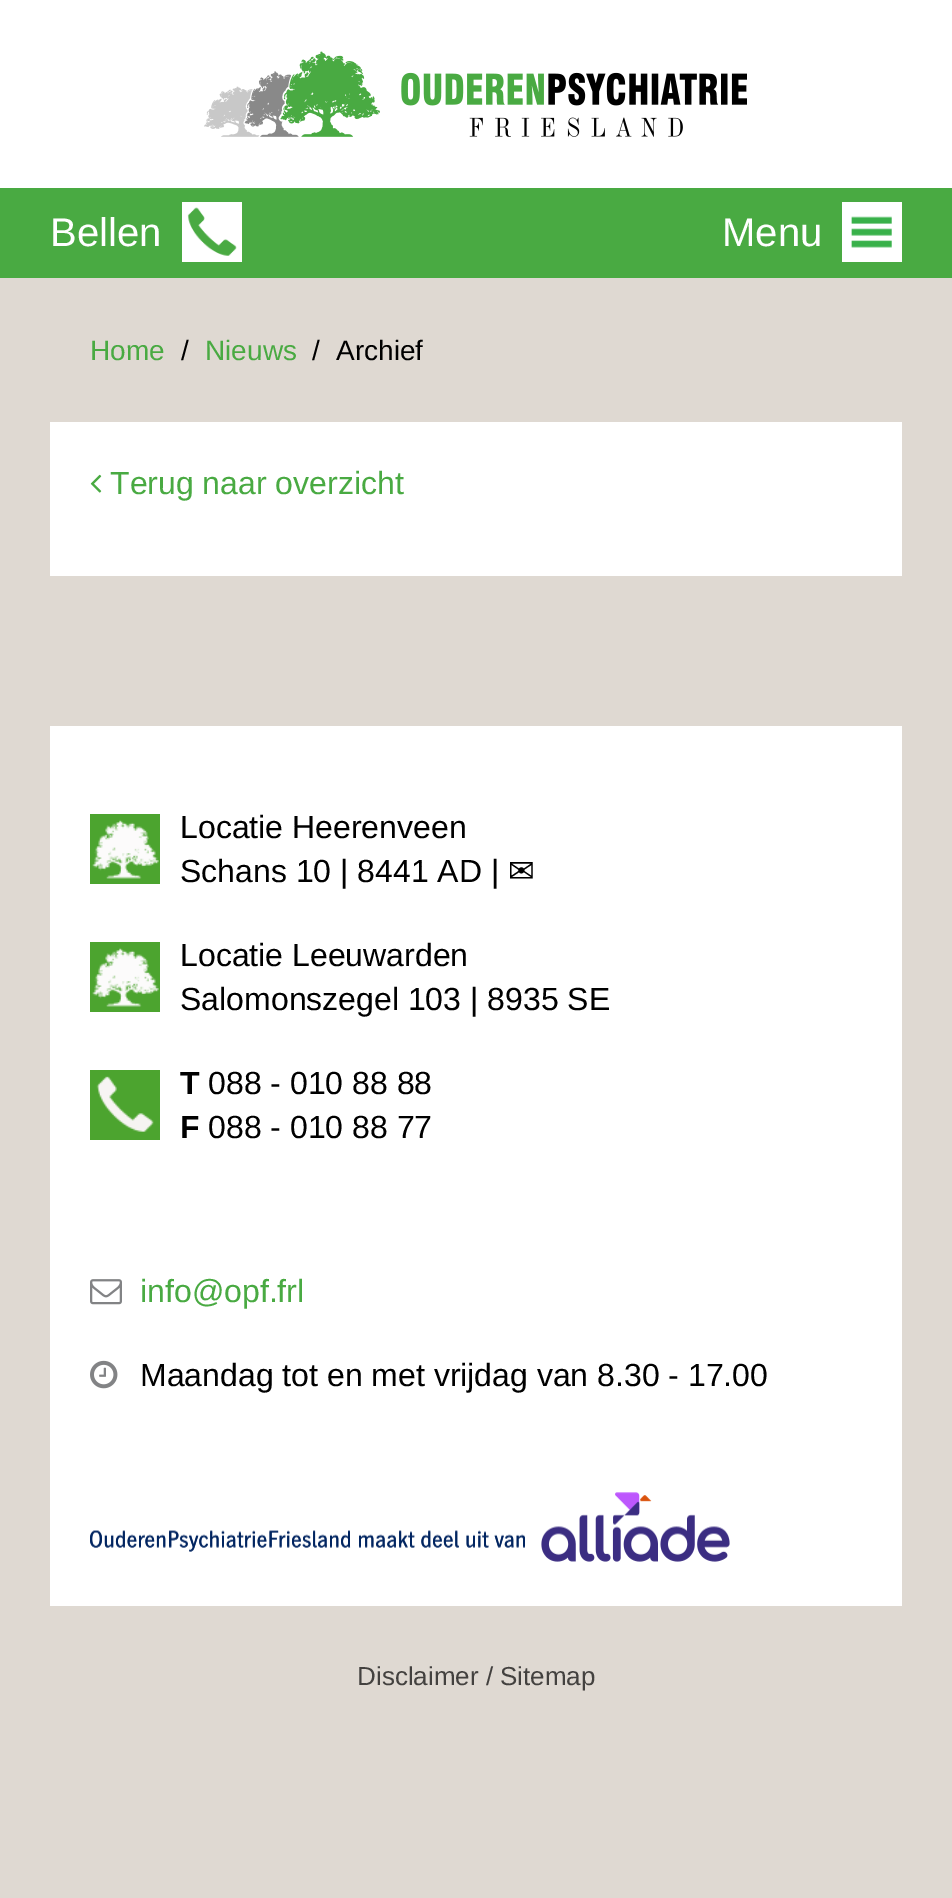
%!PS
<< /PageSize [952 1898] >> setpagedevice
/rgb { 3 { 255 div 3 1 roll } repeat setrgbcolor } def
/font { [ exch dup neg 0 0 3 -1 roll 0 0 ] selectfont } def
/picture { 5 dict begin { /h /w /y /x /name } { exch def } forall
  gsave x y translate w h scale
  w h 8 [w 0 0 h 0 0] name (r) file false 3 colorimage grestore end } def
0 1898 translate 1 -1 scale
4 setmiterlimit
223 217 210 rgb
0 0 952 1898 rectfill
255 255 255 rgb
0 0 952 188 rectfill
(img/1.rgb) 204 51 543 86 picture
73 170 66 rgb
0 188 952 90 rectfill
(img/2.rgb) 182 202 60 60 picture
(img/3.rgb) 842 202 60 60 picture
255 255 255 rgb
50 422 852 154 rectfill
(img/4.rgb) 90 474 12 19 picture
50 726 852 880 rectfill
(img/5.rgb) 90 814 70 70 picture
(img/5.rgb) 90 942 70 70 picture
(img/6.rgb) 90 1070 70 70 picture
(img/7.rgb) 90 1279 32 26 picture
(img/8.rgb) 90 1360 28 29 picture
(img/9.rgb) 90 1492 640 70 picture
/LiberationSans-Regular 40 font
50 246 moveto (Bellen) show
722 246 moveto (Menu) show
/LiberationSans-Regular 28 font
73 170 66 rgb
90 360 moveto (Home) show
0 0 0 rgb
181 360 moveto (/) show
73 170 66 rgb
205 360 moveto (Nieuws) show
0 0 0 rgb
312 360 moveto (/) show
336 360 moveto (Archief) show
/LiberationSans-Regular 32 font
73 170 66 rgb
110 494 moveto (Terug naar overzicht) show
0 0 0 rgb
180 838 moveto (Locatie Heerenveen) show
180 882 moveto (Schans 10 | 8441 AD |) show
/DejaVuSans-Regular 32 font
508 882 moveto (✉) show
/LiberationSans-Regular 32 font
180 966 moveto (Locatie Leeuwarden) show
180 1010 moveto (Salomonszegel 103 | 8935 SE) show
/LiberationSans-Bold 32 font
180 1094 moveto (T) show
/LiberationSans-Regular 32 font
208 1094 moveto (088 - 010 88 88) show
/LiberationSans-Bold 32 font
180 1138 moveto (F) show
/LiberationSans-Regular 32 font
208 1138 moveto (088 - 010 88 77) show
73 170 66 rgb
140 1302 moveto (info@opf.frl) show
0 0 0 rgb
140 1386 moveto (Maandag tot en met vrijdag van 8.30 - 17.00) show
/LiberationSans-Regular 26 font
67 65 63 rgb
357 1685 moveto (Disclaimer / Sitemap) show
showpage
